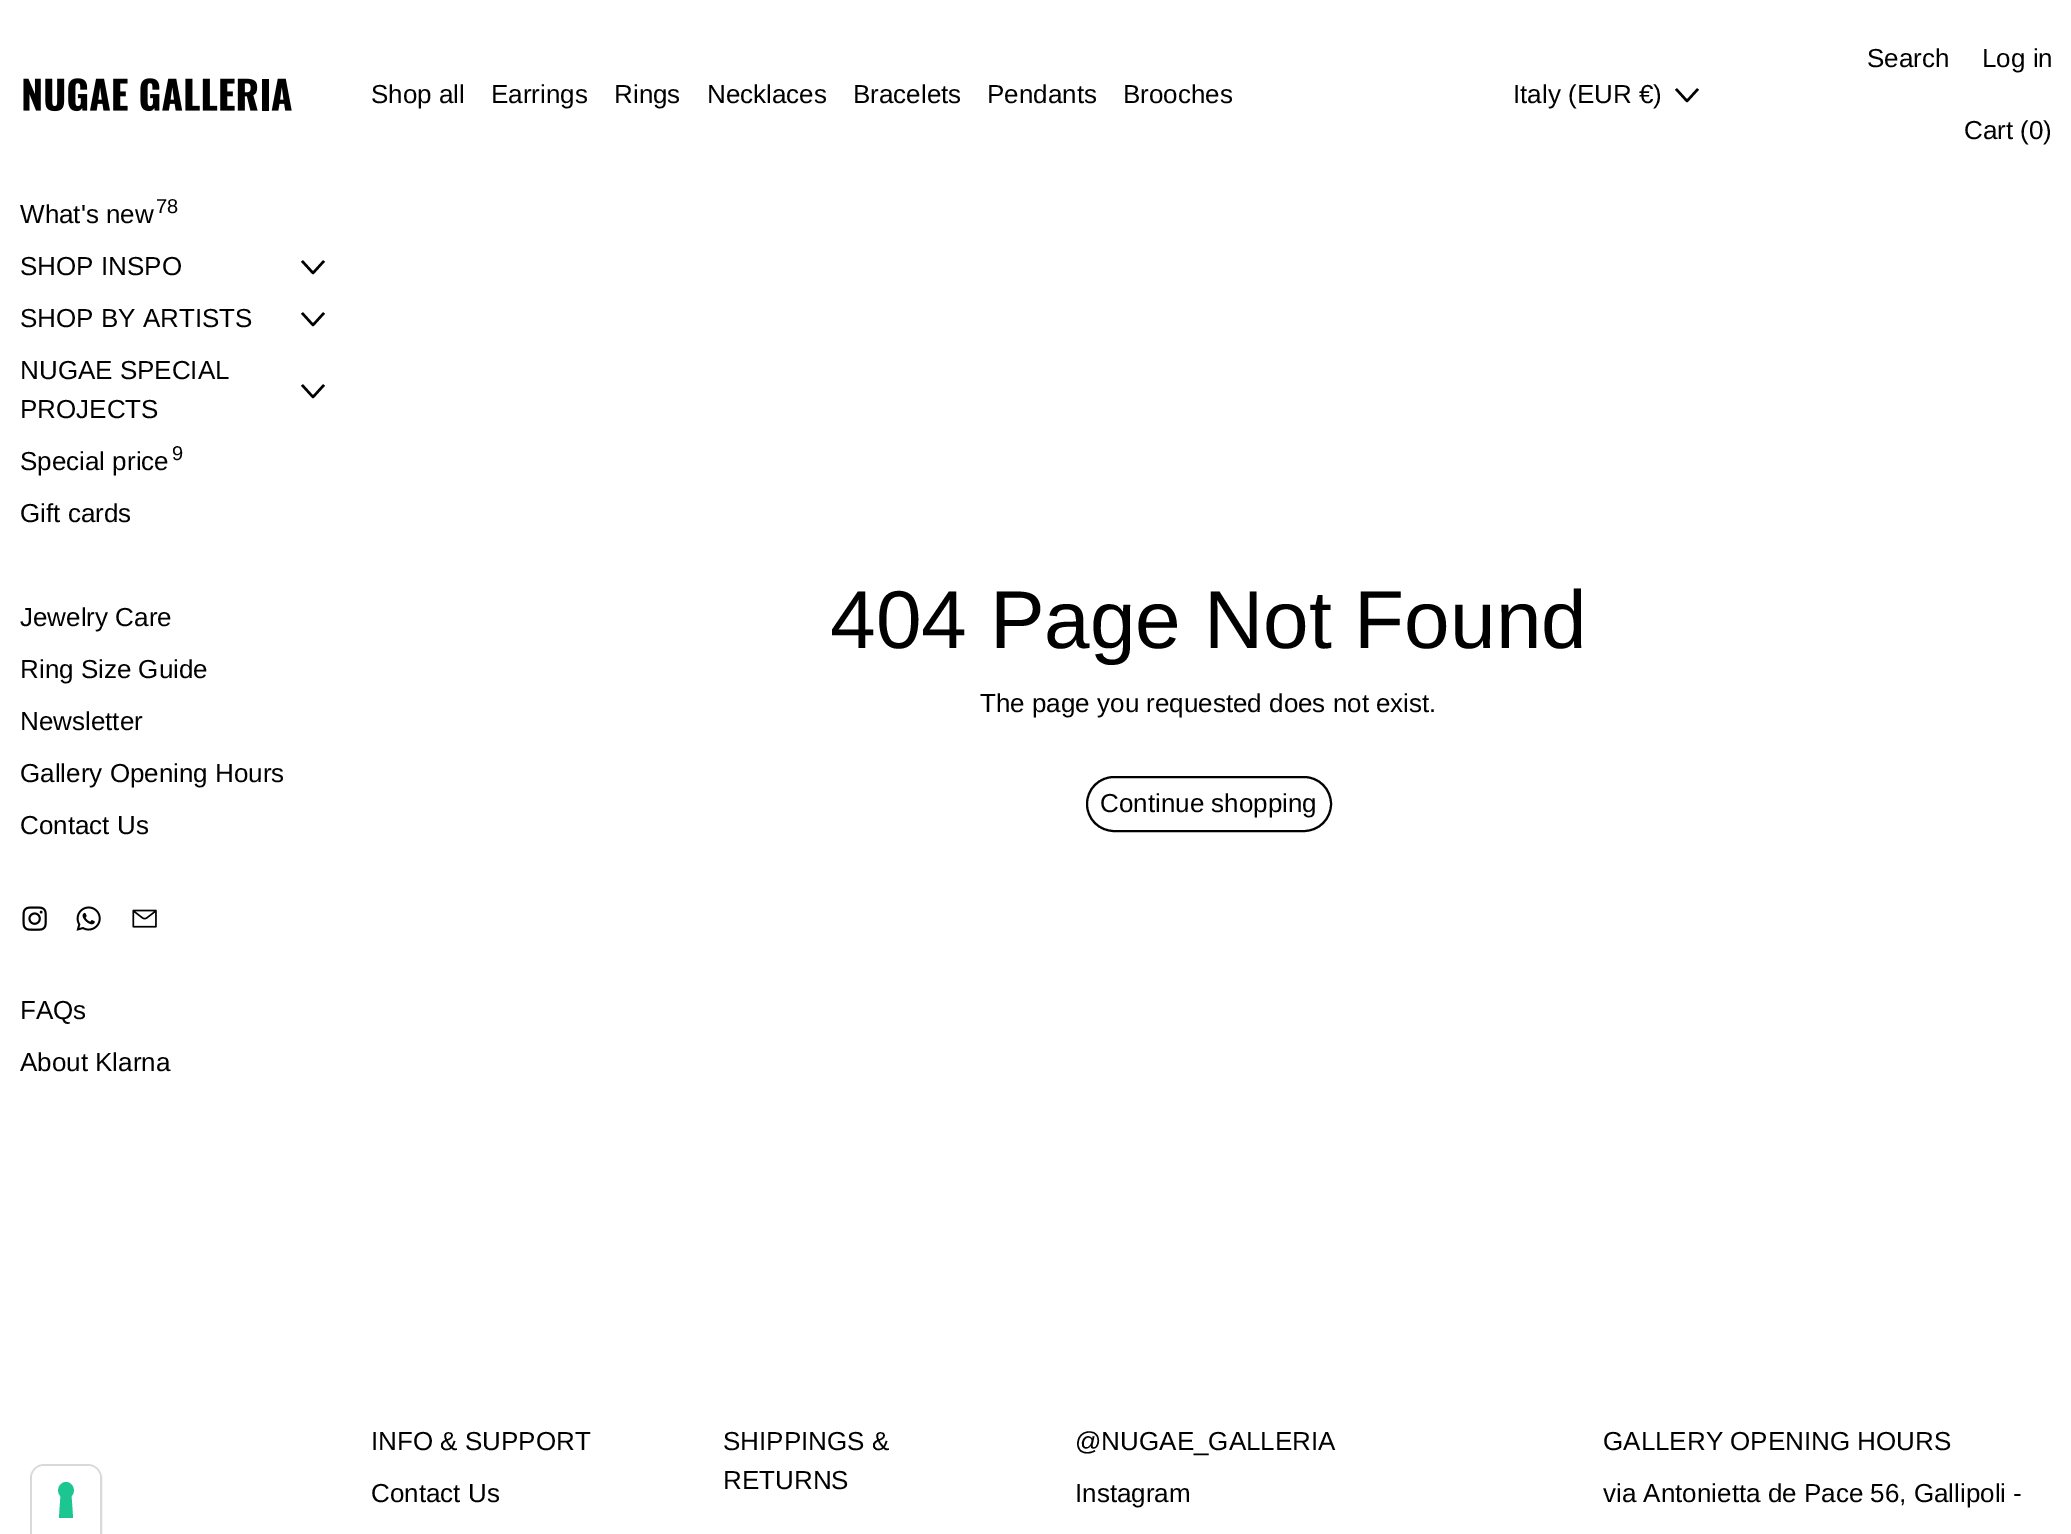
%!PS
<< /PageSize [2071 1534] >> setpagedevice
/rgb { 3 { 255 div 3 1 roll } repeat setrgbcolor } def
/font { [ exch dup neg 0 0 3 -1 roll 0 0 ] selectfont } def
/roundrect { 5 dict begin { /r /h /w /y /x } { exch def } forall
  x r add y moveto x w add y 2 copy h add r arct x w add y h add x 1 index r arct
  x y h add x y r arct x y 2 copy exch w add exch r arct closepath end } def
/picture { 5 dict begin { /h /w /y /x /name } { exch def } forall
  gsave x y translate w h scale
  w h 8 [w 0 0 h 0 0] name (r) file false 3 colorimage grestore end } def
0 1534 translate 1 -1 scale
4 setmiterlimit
255 255 255 rgb
0 0 2071 1534 rectfill
(img/1.rgb) 23 78 269 34 picture
0 0 0 rgb
2.4 setlinewidth
1 setlinejoin
1676 89 moveto 1687 101 lineto 1698 89 lineto stroke
302 261 moveto 313 273 lineto 324 261 lineto stroke
302 313 moveto 313 325 lineto 324 313 lineto stroke
302 385 moveto 313 397 lineto 324 385 lineto stroke
(img/2.rgb) 22 906 25 25 picture
(img/3.rgb) 76 906 25 25 picture
(img/4.rgb) 132 909 25 19 picture
2 setlinewidth
0 setlinejoin
1087 777 244 54 27 roundrect stroke
217 217 217 rgb
44 1465 moveto 88 1465 lineto 95 1465 101 1471 101 1478 curveto 101 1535 lineto 31 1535 lineto 31 1478 lineto 31 1471 37 1465 44 1465 curveto closepath stroke
255 255 255 rgb
44 1466 moveto 88 1466 lineto 94.5 1466 100 1471.5 100 1478 curveto 100 1534 lineto 32 1534 lineto 32 1478 lineto 32 1471.5 37.5 1466 44 1466 curveto closepath fill
28 198 145 rgb
66 1482 moveto 73 1482 76.5 1491.5 71.5 1496 curveto 73 1518 lineto 59 1518 lineto 60.5 1496 lineto 55.5 1491.5 59 1482 66 1482 curveto closepath eofill
/LiberationSans-Regular 26 font
0 0 0 rgb
[
  [(Shop all) 371 103]
  [(Earrings) 491 103]
  [(Rings) 614 103]
  [(Necklaces) 707 103]
  [(Bracelets) 853 103]
  [(Pendants) 987 103]
  [(Brooches) 1123 103]
  [(Italy \(EUR €\)) 1513 103]
  [(Search) 1867 67]
  [(Log in) 1982 67]
  [(Cart \(0\)) 1964 139]
  [(What's new) 20 223]
] { aload pop moveto show } forall
/LiberationSans-Regular 20 font
156 213 moveto (78) show
/LiberationSans-Regular 26 font
[
  [(SHOP INSPO) 20 275]
  [(SHOP BY ARTISTS) 20 327]
  [(NUGAE SPECIAL) 20 379]
  [(PROJECTS) 20 418]
  [(Special price) 20 470]
] { aload pop moveto show } forall
/LiberationSans-Regular 20 font
172 460 moveto (9) show
/LiberationSans-Regular 26 font
[
  [(Gift cards) 20 522]
  [(Jewelry Care) 20 626]
  [(Ring Size Guide) 20 678]
  [(Newsletter) 20 730]
  [(Gallery Opening Hours) 20 782]
  [(Contact Us) 20 834]
  [(FAQs) 20 1019]
  [(About Klarna) 20 1071]
] { aload pop moveto show } forall
/LiberationSans-Regular 82 font
830 648 moveto (404 Page Not Found) show
/LiberationSans-Regular 26 font
[
  [(The page you requested does not exist.) 980 712]
  [(Continue shopping) 1100 812]
  [(INFO & SUPPORT) 371 1450]
  [(Contact Us) 371 1502]
  [(SHIPPINGS &) 723 1450]
  [(RETURNS) 723 1489]
  [(@NUGAE_GALLERIA) 1075 1450]
  [(Instagram) 1075 1502]
  [(GALLERY OPENING HOURS) 1603 1450]
  [(via Antonietta de Pace 56, Gallipoli -) 1603 1502]
] { aload pop moveto show } forall
showpage
